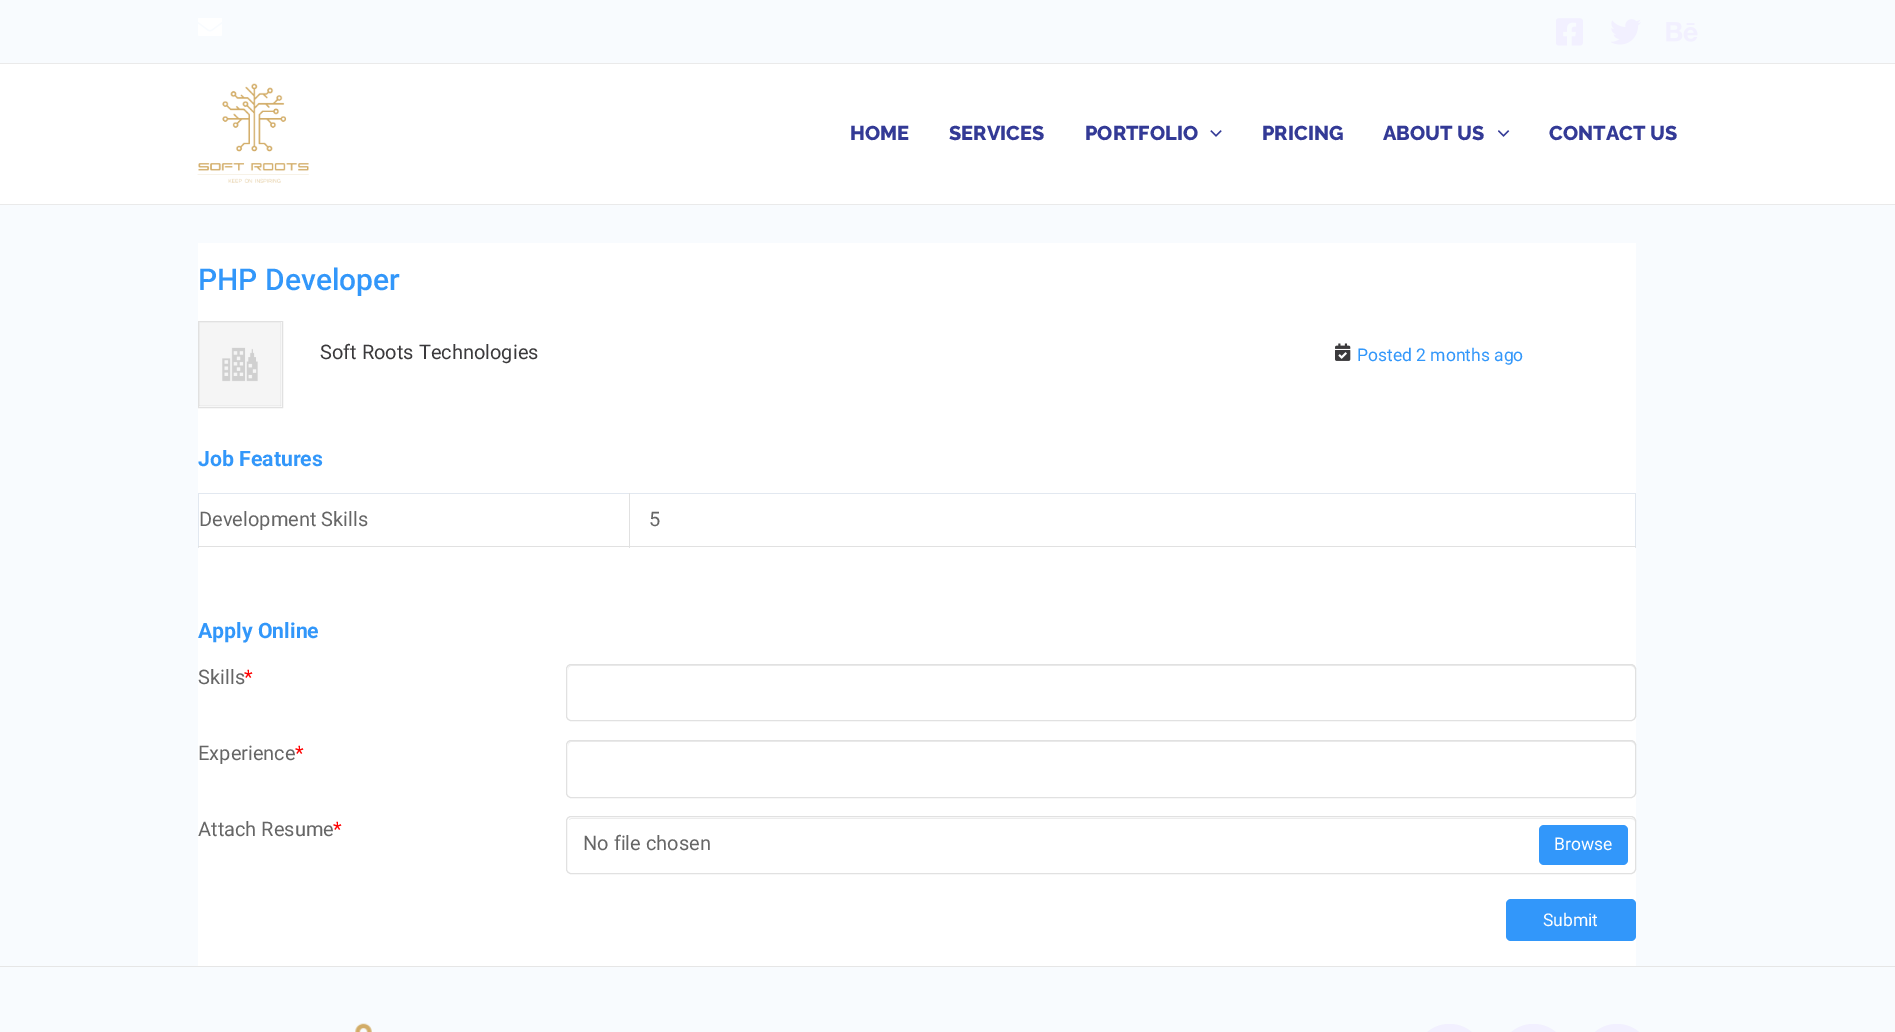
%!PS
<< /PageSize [1895 1032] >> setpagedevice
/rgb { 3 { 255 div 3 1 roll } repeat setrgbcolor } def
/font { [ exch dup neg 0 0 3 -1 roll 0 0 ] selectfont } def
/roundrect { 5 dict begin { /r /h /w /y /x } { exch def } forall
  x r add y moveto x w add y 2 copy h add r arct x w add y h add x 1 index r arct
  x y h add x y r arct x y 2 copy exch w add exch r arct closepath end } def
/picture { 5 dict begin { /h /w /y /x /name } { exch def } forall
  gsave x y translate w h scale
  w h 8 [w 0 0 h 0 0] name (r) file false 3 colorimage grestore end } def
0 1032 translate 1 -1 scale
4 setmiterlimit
248 251 254 rgb
0 0 1895 1032 rectfill
234 234 234 rgb
0 63 1895 1 rectfill
(img/1.rgb) 198 18 24 18 picture
(img/2.rgb) 1556 18 27 28 picture
(img/3.rgb) 1611 19 30 26 picture
(img/4.rgb) 1666 22 32 20 picture
255 255 255 rgb
0 64 1895 140 rectfill
234 234 234 rgb
0 204 1895 1 rectfill
(img/5.rgb) 197 83 112 100 picture
(img/6.rgb) 1210 130 12 7 picture
(img/7.rgb) 1498 130 12 7 picture
255 255 255 rgb
198 243 1438 723 rectfill
225 225 225 rgb
198.5 321.5 84 86 rectstroke
(img/8.rgb) 199 322 83 85 picture
(img/9.rgb) 1335 343 16 18 picture
[
  [198 493 1438 1 226 232 240]
  [198 493 1 55 226 232 240]
  [1635 493 1 55 226 232 240]
  [629 546 1007 1 225 225 225]
  [629 493 1 55 225 225 225]
  [198 546 432 1 225 225 225]
] { aload pop rgb rectfill } forall
236 236 236 rgb
571 666 moveto 1631 666 lineto 1633 666 1635 668 1635 670 curveto 1635 667 1634 665 1631 665 curveto 572 665 lineto 569 665 568 667 568 670 curveto 568 668 569 666 571 666 curveto closepath fill
225 225 225 rgb
566.5 664.5 1069 56 4.5 roundrect stroke
236 236 236 rgb
571 742 moveto 1631 742 lineto 1633 742 1635 744 1635 746 curveto 1635 743 1634 741 1631 741 curveto 572 741 lineto 569 741 568 743 568 746 curveto 568 744 569 742 571 742 curveto closepath fill
225 225 225 rgb
566.5 740.5 1069 57 4.5 roundrect stroke
236 236 236 rgb
571 819 moveto 1631 819 lineto 1633 819 1635 820 1635 822 curveto 1635 820 1633 818 1631 818 curveto 572 818 lineto 571 818 569 819 569 820 curveto closepath fill
225 225 225 rgb
566.5 816.5 1069 57 4.5 roundrect stroke
50 151 250 rgb
1539 825 89 40 5 roundrect fill
1506 899 130 42 5 roundrect fill
230 230 230 rgb
0 966 1895 1 rectfill
(img/10.rgb) 355 1023 17 9 picture
242 240 255 rgb
1415 1024 69 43 34.5 roundrect fill
1499 1024 69 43 34.5 roundrect fill
1583 1024 68 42 34 roundrect fill
/Raleway-Thin 20 font
51 58 150 rgb
[
  [(HOME) 850 140]
  [(SERVICES) 949 140]
  [(PORTFOLIO) 1085 140]
  [(PRICING) 1262 140]
  [(ABOUT US) 1383 140]
  [(CONTACT US) 1549 140]
] { aload pop moveto show } forall
/Roboto-Medium 30 font
50 151 250 rgb
198 290 moveto (PHP Developer) show
/Roboto-Regular 20 font
59 58 60 rgb
320 359 moveto (Soft Roots Technologies) show
/Roboto-Regular 17.5 font
50 151 250 rgb
1357 361 moveto (Posted 2 months ago) show
/Roboto-Bold 21.25 font
198 466 moveto (Job Features) show
/Roboto-Regular 20 font
102 102 102 rgb
199 526 moveto (Development Skills) show
649 526 moveto (5) show
/Roboto-Bold 21.25 font
50 151 250 rgb
198 638 moveto (Apply Online) show
/Roboto-Regular 20 font
102 102 102 rgb
198 684 moveto (Skills) show
255 0 0 rgb
244 684 moveto (*) show
102 102 102 rgb
198 760 moveto (Experience) show
255 0 0 rgb
295 760 moveto (*) show
102 102 102 rgb
198 836 moveto (Attach Resume) show
255 0 0 rgb
333 836 moveto (*) show
102 102 102 rgb
583 850 moveto (No file chosen) show
/Roboto-Regular 17.5 font
255 255 255 rgb
1554 850 moveto (Browse) show
1543 926 moveto (Submit) show
showpage
